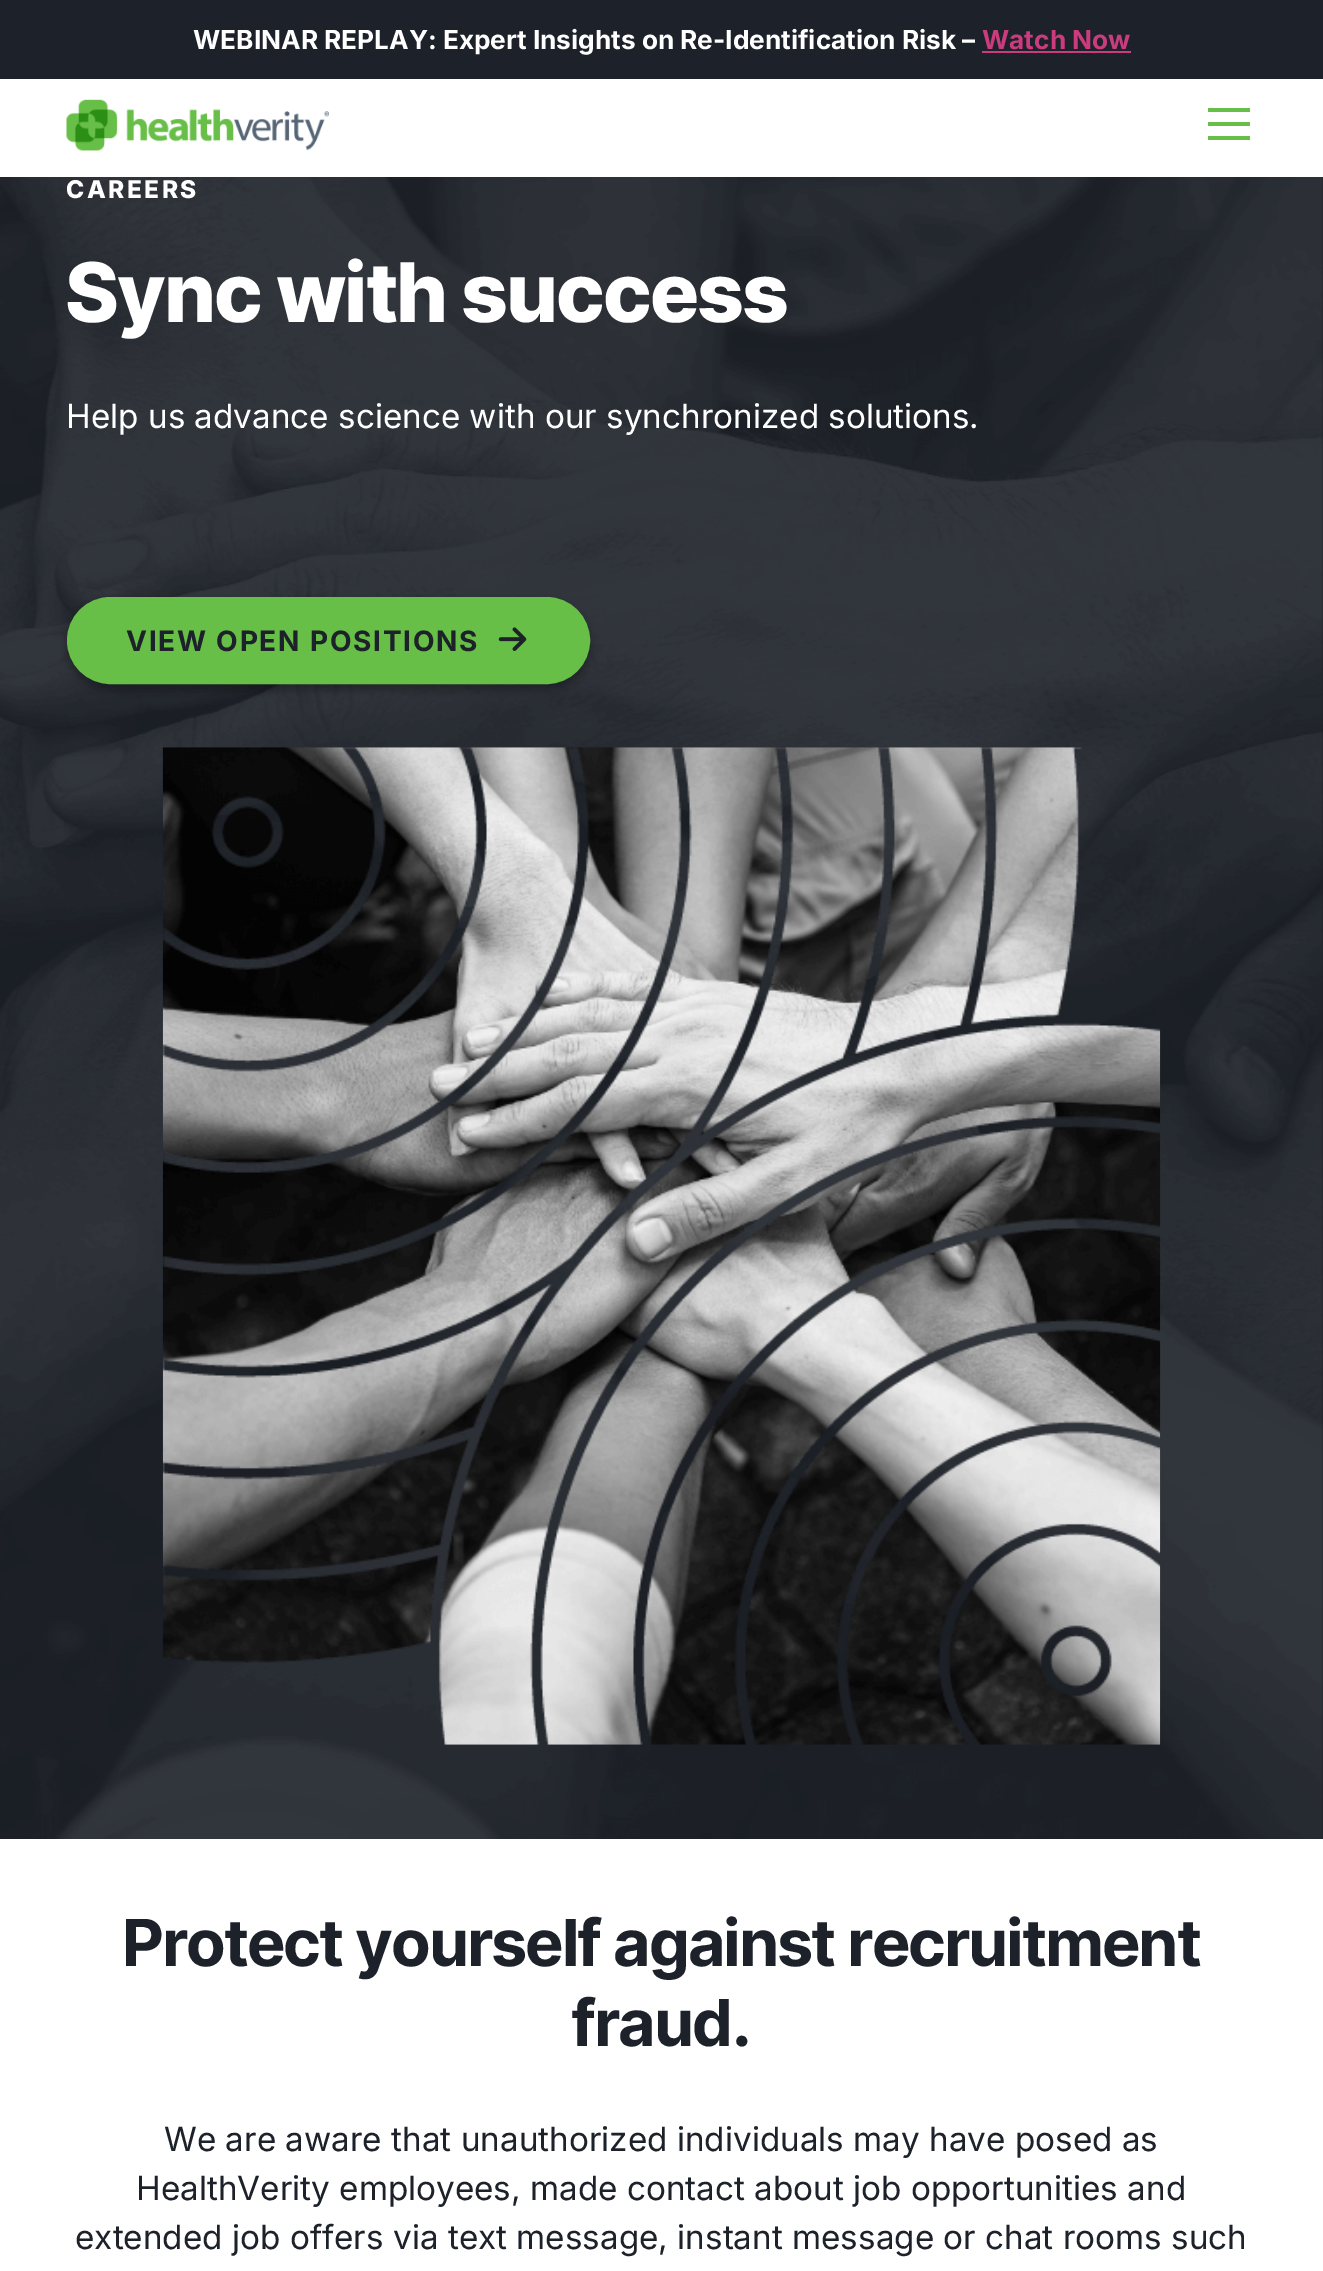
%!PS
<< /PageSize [1323 2271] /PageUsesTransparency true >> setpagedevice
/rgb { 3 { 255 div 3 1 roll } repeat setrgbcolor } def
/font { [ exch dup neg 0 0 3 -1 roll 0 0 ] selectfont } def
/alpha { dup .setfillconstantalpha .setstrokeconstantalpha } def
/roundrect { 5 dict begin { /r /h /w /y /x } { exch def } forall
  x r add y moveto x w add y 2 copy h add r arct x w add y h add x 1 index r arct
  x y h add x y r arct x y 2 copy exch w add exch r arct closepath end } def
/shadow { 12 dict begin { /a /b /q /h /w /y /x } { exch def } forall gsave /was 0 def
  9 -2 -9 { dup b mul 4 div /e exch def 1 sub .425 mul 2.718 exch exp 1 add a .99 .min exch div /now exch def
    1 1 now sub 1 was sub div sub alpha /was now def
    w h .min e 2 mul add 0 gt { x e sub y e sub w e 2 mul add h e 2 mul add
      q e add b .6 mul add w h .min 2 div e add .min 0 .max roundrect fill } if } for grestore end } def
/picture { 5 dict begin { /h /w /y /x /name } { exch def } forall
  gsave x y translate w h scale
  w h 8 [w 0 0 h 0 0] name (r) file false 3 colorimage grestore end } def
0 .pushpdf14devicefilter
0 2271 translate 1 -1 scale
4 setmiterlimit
29 33 41 rgb
0 0 1323 2271 rectfill
202 60 125 rgb
982 51 149 2 rectfill
255 255 255 rgb
0 79 1323 98 rectfill
(img/1.rgb) 66 99 263 52 picture
103 191 71 rgb
1208 122 moveto 1250 122 lineto 1250 126 lineto 1208 126 lineto closepath 1208 108 moveto 1250 108 lineto 1250 112 lineto 1208 112 lineto closepath 1208 136 moveto 1250 136 lineto 1250 140 lineto 1208 140 lineto closepath fill
(img/2.rgb) 0 177 1323 1662 picture
0 0 0 rgb
67 602 523 88 44 5 0.3 shadow
103 191 71 rgb
69 599 519 83 41.5 roundrect gsave fill grestore
4 setlinewidth
stroke
(img/3.rgb) 498 627 29 24 picture
(img/4.rgb) 162 747 999 998 picture
255 255 255 rgb
0 1839 1323 432 rectfill
/Inter-Bold 26.25 font
193 49 moveto (WEBINAR REPLAY: Expert Insights on Re-Identification Risk –) show
202 60 125 rgb
982 49 moveto (Watch Now) show
/Inter-ExtraBold 24.5 font
255 255 255 rgb
66 198 moveto 2.5 0 (CAREERS) ashow
/InterTight-ExtraBold 82.25 font
66 322 moveto (Sync with success) show
/Inter-Regular 33.25 font
66 428 moveto (Help us advance science with our synchronized solutions.) show
/Inter-Bold 28 font
29 33 41 rgb
126 651 moveto 1.75 0 (VIEW OPEN POSITIONS) ashow
/InterTight-Bold 64.75 font
123 1966 moveto (Protect yourself against recruitment) show
572 2046 moveto (fraud.) show
/Inter-Regular 33.25 font
[
  [(We are aware that unauthorized individuals may have posed as) 164 2151]
  [(HealthVerity employees, made contact about job opportunities and) 136 2200]
  [(extended job offers via text message, instant message or chat rooms such) 75 2249]
] { aload pop moveto show } forall
.poppdf14devicefilter showpage
